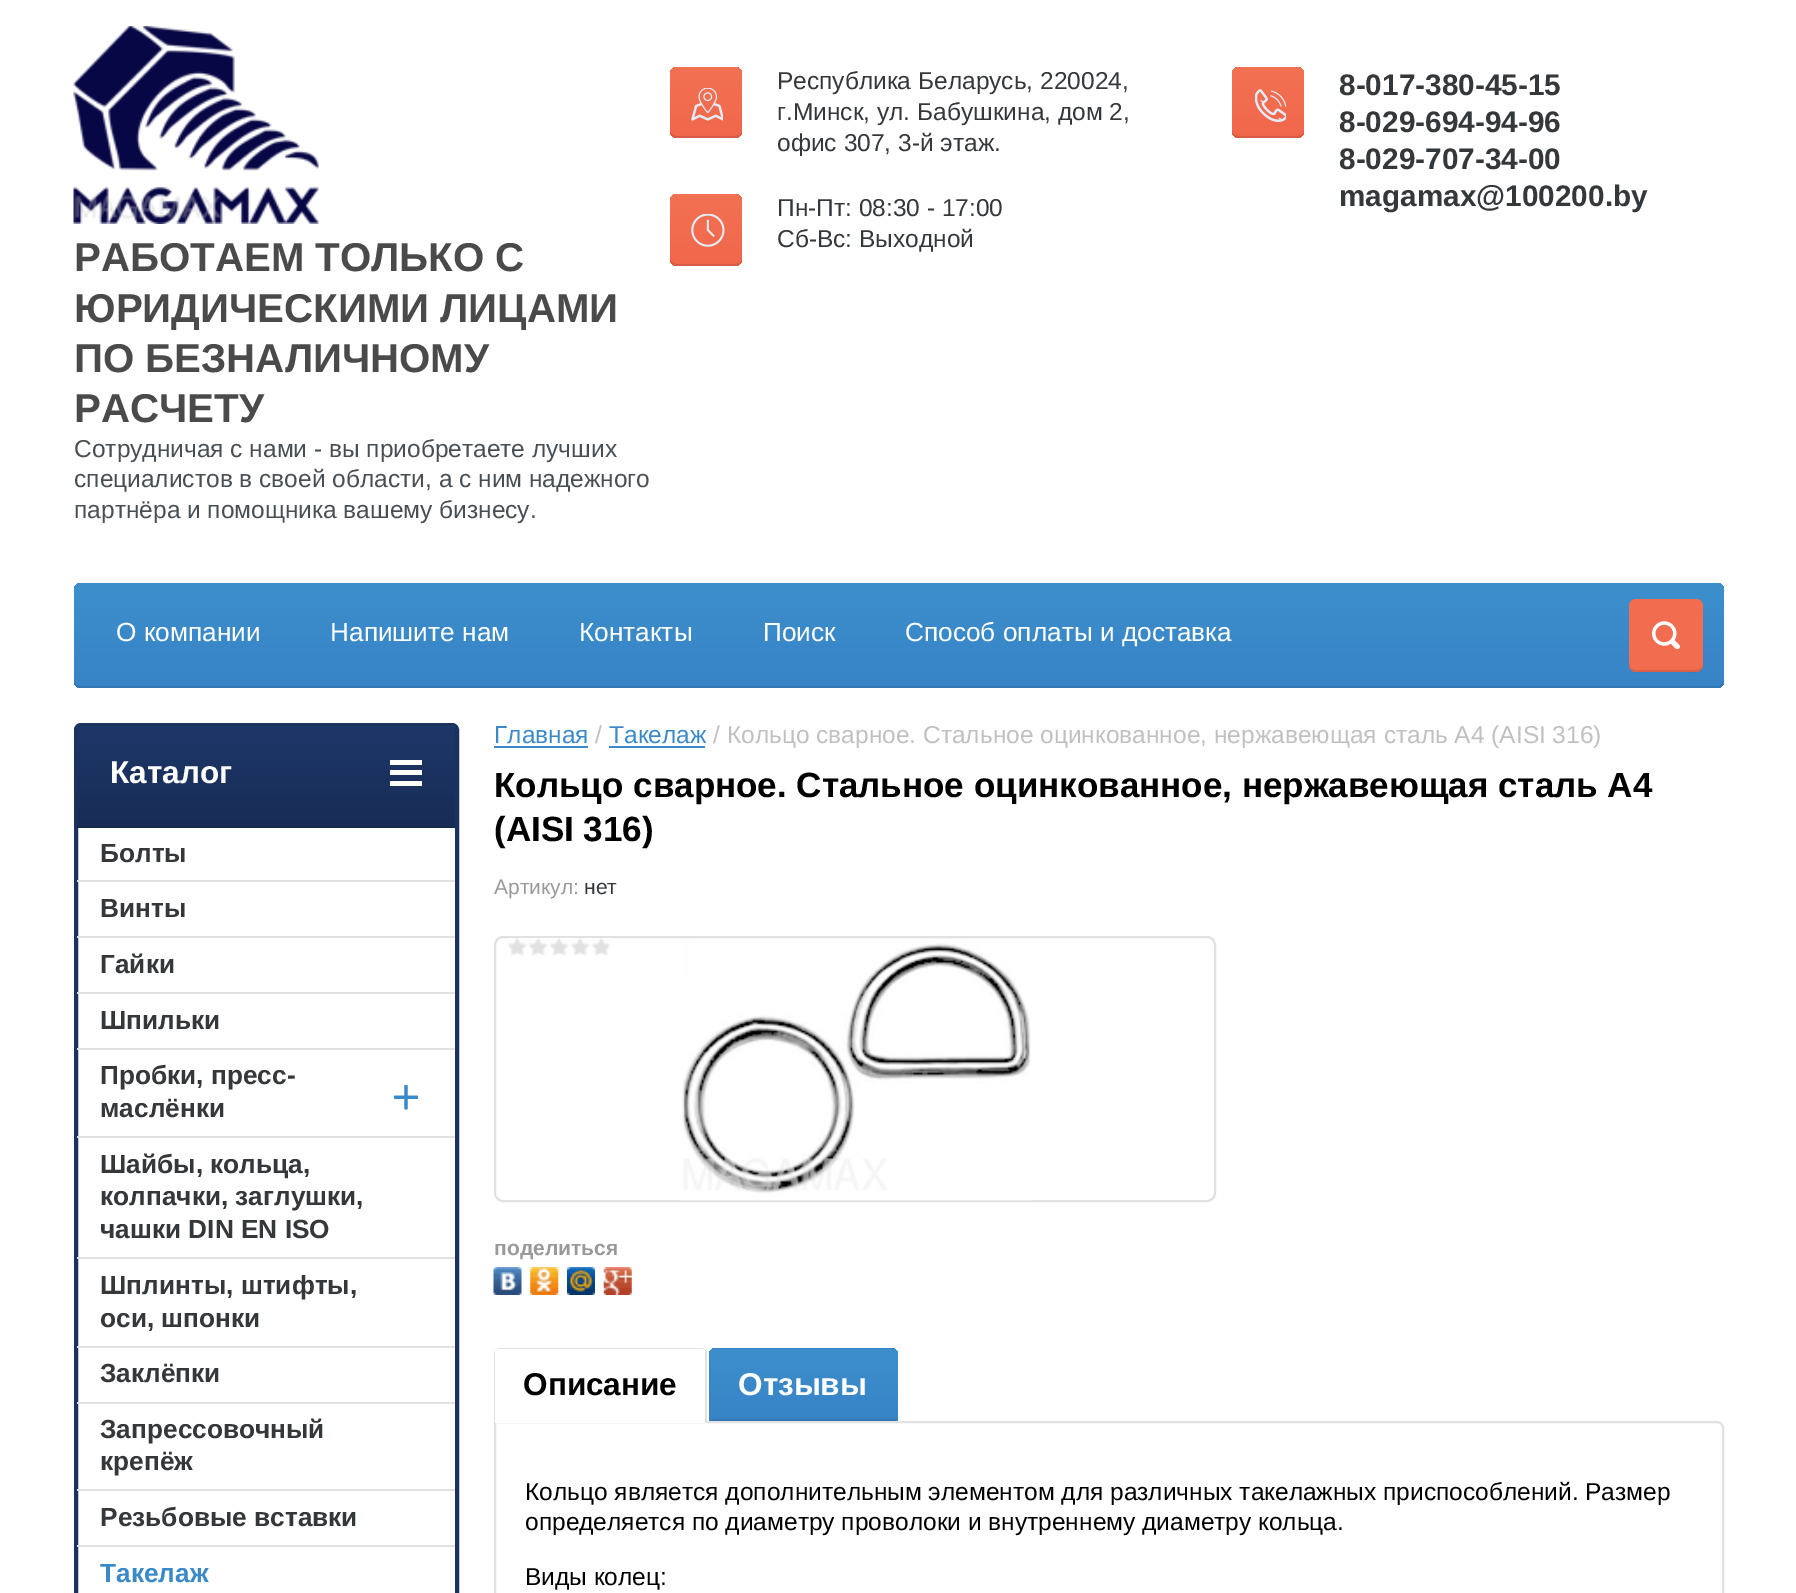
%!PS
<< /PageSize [1796 1593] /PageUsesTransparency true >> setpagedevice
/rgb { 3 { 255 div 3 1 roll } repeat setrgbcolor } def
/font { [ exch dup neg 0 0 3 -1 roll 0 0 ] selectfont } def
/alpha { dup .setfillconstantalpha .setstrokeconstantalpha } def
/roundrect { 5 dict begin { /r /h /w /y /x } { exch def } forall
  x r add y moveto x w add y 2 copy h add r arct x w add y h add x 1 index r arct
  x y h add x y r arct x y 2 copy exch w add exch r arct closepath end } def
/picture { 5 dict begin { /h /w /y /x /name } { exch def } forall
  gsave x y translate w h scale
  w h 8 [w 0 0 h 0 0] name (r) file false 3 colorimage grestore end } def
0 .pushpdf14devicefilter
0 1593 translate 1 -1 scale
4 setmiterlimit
255 255 255 rgb
0 0 1796 1593 rectfill
gsave 670 67 72 71 7 roundrect clip newpath
<< /ShadingType 2 /ColorSpace /DeviceRGB /Coords [706 138 706 67] /Extend [true true] /Function << /FunctionType 2 /Domain [0 1] /C0 [0.945 0.404 0.294] /C1 [0.953 0.443 0.325] /N 1 >> >> shfill grestore
0.1 alpha
0 0 0 rgb
670 130 moveto 670 140 679 138 687 138 curveto 725 138 lineto 733 138 742 140 742 130 curveto 742 133 739 136 735 136 curveto 677 136 lineto 673 136 670 133 670 130 curveto closepath fill
1 alpha
(img/1.rgb) 691 88 32 33 picture
gsave 670 194 72 72 7 roundrect clip newpath
<< /ShadingType 2 /ColorSpace /DeviceRGB /Coords [706 266 706 194] /Extend [true true] /Function << /FunctionType 2 /Domain [0 1] /C0 [0.945 0.404 0.294] /C1 [0.953 0.443 0.325] /N 1 >> >> shfill grestore
0.1 alpha
670 257 moveto 670 268 678 266 687 266 curveto 725 266 lineto 734 266 742 268 742 257 curveto 742 261 739 264 735 264 curveto 677 264 lineto 673 264 670 261 670 257 curveto closepath fill
1 alpha
(img/2.rgb) 691 214 34 33 picture
gsave 1232 67 72 71 7 roundrect clip newpath
<< /ShadingType 2 /ColorSpace /DeviceRGB /Coords [1268 138 1268 67] /Extend [true true] /Function << /FunctionType 2 /Domain [0 1] /C0 [0.945 0.404 0.294] /C1 [0.953 0.443 0.325] /N 1 >> >> shfill grestore
0.1 alpha
1232 130 moveto 1232 140 1241 138 1249 138 curveto 1287 138 lineto 1295 138 1304 140 1304 130 curveto 1304 133 1301 136 1297 136 curveto 1239 136 lineto 1235 136 1232 133 1232 130 curveto closepath fill
1 alpha
(img/3.rgb) 1255 89 31 33 picture
(img/4.rgb) 73 26 246 198 picture
gsave 74 583 1650 105 7 roundrect clip newpath
<< /ShadingType 2 /ColorSpace /DeviceRGB /Coords [899 688 899 583] /Extend [true true] /Function << /FunctionType 2 /Domain [0 1] /C0 [0.216 0.514 0.776] /C1 [0.239 0.561 0.8] /N 1 >> >> shfill grestore
0.1 alpha
74 679 moveto 74 683 76 688 81 688 curveto 1717 688 lineto 1722 688 1724 683 1724 679 curveto 1724 683 1721 686 1717 686 curveto 80 686 lineto 77 686 74 683 74 679 curveto closepath fill
1 alpha
242 108 79 rgb
1629 599 74 73 7 roundrect fill
0.1 alpha
0 0 0 rgb
1629 663 moveto 1629 674 1637 672 1646 672 curveto 1686 672 lineto 1695 672 1703 674 1703 663 curveto 1703 667 1700 670 1696 670 curveto 1636 670 lineto 1632 670 1629 667 1629 663 curveto closepath fill
1 alpha
(img/5.rgb) 1652 621 28 28 picture
27 50 95 rgb
4 setlinewidth
76 725 381 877 5 roundrect stroke
gsave 77 726 moveto 455 726 lineto 455 826 lineto 77 826 lineto closepath clip newpath
<< /ShadingType 2 /ColorSpace /DeviceRGB /Coords [266 828 266 726] /Extend [true true] /Function << /FunctionType 2 /Domain [0 1] /C0 [0.094 0.176 0.337] /C1 [0.118 0.216 0.412] /N 1 >> >> shfill grestore
[
  [77 826 378 2 22 41 77]
  [390 760 32 5 255 255 255]
  [390 770 32 5 255 255 255]
  [390 781 32 5 255 255 255]
  [77 880 378 2 225 225 225]
  [77 936 378 2 225 225 225]
  [77 992 378 2 225 225 225]
  [77 1048 378 2 225 225 225]
] { aload pop rgb rectfill } forall
(img/6.rgb) 394 1085 24 25 picture
[
  [77 1136 378 2 225 225 225]
  [77 1257 378 2 225 225 225]
  [77 1346 378 2 225 225 225]
  [77 1402 378 2 225 225 225]
  [77 1489 378 2 225 225 225]
  [77 1545 378 2 225 225 225]
  [494 746 94 2 58 137 201]
  [609 746 96 2 58 137 201]
] { aload pop rgb rectfill } forall
225 225 225 rgb
2 setlinewidth
495 937 720 264 8 roundrect stroke
(img/7.rgb) 508 938 103 18 picture
(img/8.rgb) 681 943 350 258 picture
(img/9.rgb) 493 1267 29 28 picture
(img/10.rgb) 530 1267 29 28 picture
(img/11.rgb) 567 1267 28 28 picture
(img/12.rgb) 603 1267 29 28 picture
495 1422 moveto 1717 1422 lineto 1720.5 1422 1723 1424.5 1723 1428 curveto 1723 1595 lineto 1723 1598.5 1720.5 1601 1717 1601 curveto 501 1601 lineto 497.5 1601 495 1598.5 495 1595 curveto closepath stroke
255 255 255 rgb
501 1348 moveto 700 1348 lineto 704 1348 707 1351 707 1355 curveto 707 1423 lineto 494 1423 lineto 494 1355 lineto 494 1351 497 1348 501 1348 curveto closepath fill
225 225 225 rgb
500 1348 moveto 700 1348 lineto 704 1348 707 1351 707 1354 curveto 707 1423 lineto 494 1423 lineto 494 1354 lineto 494 1351 497 1348 500 1348 curveto closepath 500 1349 moveto 700 1349 lineto 703 1349 705 1352 705 1354 curveto 705 1423 lineto 495 1423 lineto 495 1354 lineto 495 1352 498 1349 500 1349 curveto closepath eofill
255 255 255 rgb
495 1349 210 5 rectfill
gsave
716 1348 moveto 891 1348 lineto 895 1348 898 1351 898 1355 curveto 898 1421 lineto 709 1421 lineto 709 1355 lineto 709 1351 712 1348 716 1348 curveto closepath clip newpath
gsave 709 1348 moveto 898 1348 lineto 898 1349 lineto 709 1349 lineto closepath clip newpath
<< /ShadingType 2 /ColorSpace /DeviceRGB /Coords [803 1349 803 1278] /Extend [true true] /Function << /FunctionType 2 /Domain [0 1] /C0 [0.216 0.514 0.776] /C1 [0.239 0.561 0.8] /N 1 >> >> shfill grestore
gsave 709 1349 moveto 898 1349 lineto 898 1421 lineto 709 1421 lineto closepath clip newpath
<< /ShadingType 2 /ColorSpace /DeviceRGB /Coords [803 1421 803 1349] /Extend [true true] /Function << /FunctionType 2 /Domain [0 1] /C0 [0.216 0.514 0.776] /C1 [0.239 0.561 0.8] /N 1 >> >> shfill grestore
grestore
50 118 178 rgb
711 1419 185 2 rectfill
/LiberationSans-Regular 24.5 font
52 56 58 rgb
[
  [(Республика Беларусь, 220024,) 777 89]
  [(г.Минск, ул. Бабушкина, дом 2,) 777 120]
  [(офис 307, 3-й этаж.) 777 151]
  [(Пн-Пт: 08:30 - 17:00) 777 216]
  [(Сб-Вс: Выходной) 777 247]
] { aload pop moveto show } forall
/LiberationSans-Bold 29.75 font
[
  [(8-017-380-45-15) 1339 95]
  [(8-029-694-94-96) 1339 132]
  [(8-029-707-34-00) 1339 169]
  [(magamax@100200.by) 1339 206]
] { aload pop moveto show } forall
/LiberationSans-Bold 40.25 font
74 74 74 rgb
[
  [(РАБОТАЕМ ТОЛЬКО С) 74 271]
  [(ЮРИДИЧЕСКИМИ ЛИЦАМИ) 74 322]
  [(ПО БЕЗНАЛИЧНОМУ) 74 372]
  [(РАСЧЕТУ) 74 422]
] { aload pop moveto show } forall
/LiberationSans-Regular 24.5 font
71 79 84 rgb
[
  [(Сотрудничая с нами - вы приобретаете лучших) 74 457]
  [(специалистов в своей области, а с ним надежного) 74 487]
  [(партнёра и помощника вашему бизнесу.) 74 518]
] { aload pop moveto show } forall
/LiberationSans-Regular 26.25 font
255 255 255 rgb
[
  [(О компании) 116 641]
  [(Напишите нам) 330 641]
  [(Контакты) 579 641]
  [(Поиск) 763 641]
  [(Способ оплаты и доставка) 905 641]
] { aload pop moveto show } forall
/LiberationSans-Bold 31.5 font
110 783 moveto (Каталог) show
/LiberationSans-Bold 26.25 font
52 56 58 rgb
[
  [(Болты) 100 862]
  [(Винты) 100 917]
  [(Гайки) 100 973]
  [(Шпильки) 100 1029]
  [(Пробки, пресс-) 100 1084]
  [(маслёнки) 100 1117]
  [(Шайбы, кольца,) 100 1173]
  [(колпачки, заглушки,) 100 1205]
  [(чашки DIN EN ISO) 100 1238]
  [(Шплинты, штифты,) 100 1294]
  [(оси, шпонки) 100 1327]
  [(Заклёпки) 100 1382]
  [(Запрессовочный) 100 1438]
  [(крепёж) 100 1470]
  [(Резьбовые вставки) 100 1526]
] { aload pop moveto show } forall
58 137 201 rgb
100 1582 moveto (Такелаж) show
/LiberationSans-Regular 24.5 font
494 743 moveto (Главная) show
192 192 192 rgb
595 743 moveto (/) show
58 137 201 rgb
609 743 moveto (Такелаж) show
192 192 192 rgb
713 743 moveto (/ Кольцо сварное. Стальное оцинкованное, нержавеющая сталь A4 \(AISI 316\)) show
/LiberationSans-Bold 35 font
0 0 0 rgb
494 797 moveto (Кольцо сварное. Стальное оцинкованное, нержавеющая сталь A4) show
494 841 moveto (\(AISI 316\)) show
/LiberationSans-Regular 21 font
153 153 153 rgb
494 894 moveto (Артикул:) show
52 56 58 rgb
584 894 moveto (нет) show
/LiberationSans-Bold 21 font
153 153 153 rgb
494 1255 moveto (поделиться) show
/LiberationSans-Bold 31.5 font
0 0 0 rgb
523 1395 moveto (Описание) show
255 255 255 rgb
738 1395 moveto (Отзывы) show
/LiberationSans-Regular 24.5 font
0 0 0 rgb
[
  [(Кольцо является дополнительным элементом для различных такелажных приспособлений. Размер) 525 1500]
  [(определяется по диаметру проволоки и внутреннему диаметру кольца.) 525 1530]
  [(Виды колец:) 525 1585]
] { aload pop moveto show } forall
.poppdf14devicefilter showpage
